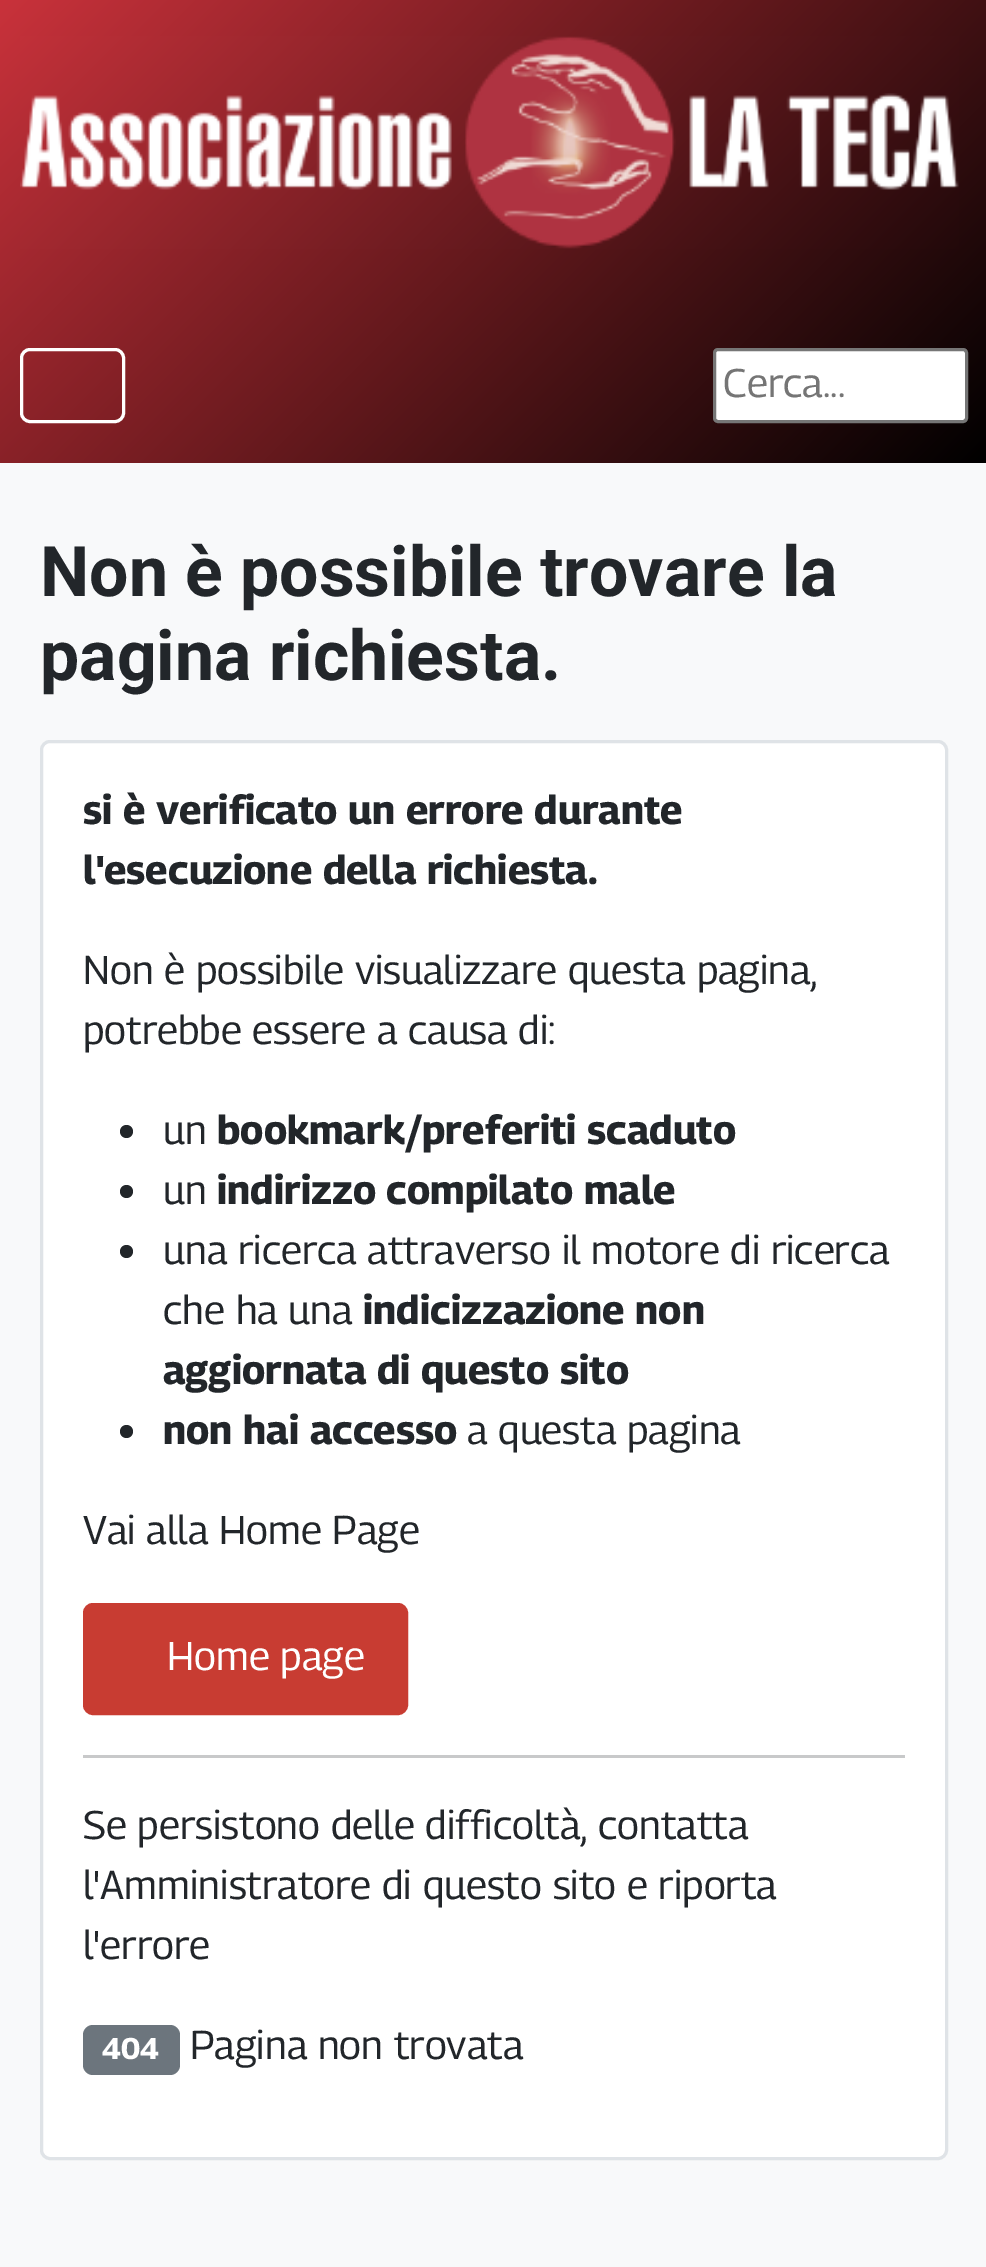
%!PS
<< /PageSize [986 2267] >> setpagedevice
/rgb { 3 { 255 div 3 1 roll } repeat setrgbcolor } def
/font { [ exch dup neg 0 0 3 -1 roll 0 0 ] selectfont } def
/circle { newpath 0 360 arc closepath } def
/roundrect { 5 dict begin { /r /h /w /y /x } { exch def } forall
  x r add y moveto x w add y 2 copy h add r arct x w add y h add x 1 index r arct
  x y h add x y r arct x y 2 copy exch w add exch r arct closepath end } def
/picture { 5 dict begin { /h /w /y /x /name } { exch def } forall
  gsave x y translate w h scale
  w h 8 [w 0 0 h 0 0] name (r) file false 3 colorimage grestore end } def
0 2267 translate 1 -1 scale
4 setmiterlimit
248 249 250 rgb
0 0 986 2267 rectfill
gsave 0 0 moveto 986 0 lineto 986 463 lineto 0 463 lineto closepath clip newpath
<< /ShadingType 2 /ColorSpace /DeviceRGB /Coords [131 -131 856 594] /Extend [true true] /Function << /FunctionType 2 /Domain [0 1] /C0 [0.788 0.196 0.231] /C1 [0 0 0] /N 1 >> >> shfill grestore
(img/1.rgb) 20 36 939 213 picture
255 255 255 rgb
3 setlinewidth
21.5 349.5 102 72 8.5 roundrect stroke
714.5 349.5 252 72 3.5 roundrect gsave fill grestore
118 118 118 rgb
stroke
255 255 255 rgb
41.5 741.5 905 1417 8.5 roundrect gsave fill grestore
223 227 231 rgb
stroke
34 38 42 rgb
126.5 1131.5 6.5 circle fill
126.5 1191.5 6.5 circle fill
126.5 1251.5 6.5 circle fill
126.5 1431.5 6.5 circle fill
200 60 50 rgb
84.5 1604.5 322 109 8.5 roundrect gsave fill grestore
stroke
200 201 202 rgb
83 1755 822 3 rectfill
108 117 125 rgb
83 2025 97 50 10 roundrect fill
/Georama-Regular 40 font
117 117 117 rgb
723 397 moveto (Cerca...) show
/Roboto-Bold 69.75 font
34 38 42 rgb
40 596 moveto (Non è possibile trovare la) show
40 680 moveto (pagina richiesta.) show
/Georama-Bold 40 font
83 824 moveto (si è verificato un errore durante) show
83 884 moveto (l'esecuzione della richiesta.) show
/Georama-Regular 40 font
[
  [(Non è possibile visualizzare questa pagina,) 83 984]
  [(potrebbe essere a causa di:) 83 1044]
  [(un) 163 1144]
] { aload pop moveto show } forall
/Georama-Bold 40 font
217 1144 moveto (bookmark/preferiti scaduto) show
/Georama-Regular 40 font
163 1204 moveto (un) show
/Georama-Bold 40 font
217 1204 moveto (indirizzo compilato male) show
/Georama-Regular 40 font
163 1264 moveto (una ricerca attraverso il motore di ricerca) show
163 1324 moveto (che ha una) show
/Georama-Bold 40 font
[
  [(indicizzazione non) 363 1324]
  [(aggiornata di questo sito) 163 1384]
  [(non hai accesso) 163 1444]
] { aload pop moveto show } forall
/Georama-Regular 40 font
467 1444 moveto (a questa pagina) show
83 1544 moveto (Vai alla Home Page) show
255 255 255 rgb
167 1670 moveto (Home page) show
34 38 42 rgb
[
  [(Se persistono delle difficoltà, contatta) 83 1839]
  [(l'Amministratore di questo sito e riporta) 83 1899]
  [(l'errore) 83 1959]
] { aload pop moveto show } forall
/Georama-Bold 30 font
255 255 255 rgb
102 2059 moveto (404) show
/Georama-Regular 40 font
34 38 42 rgb
190 2059 moveto (Pagina non trovata) show
showpage
